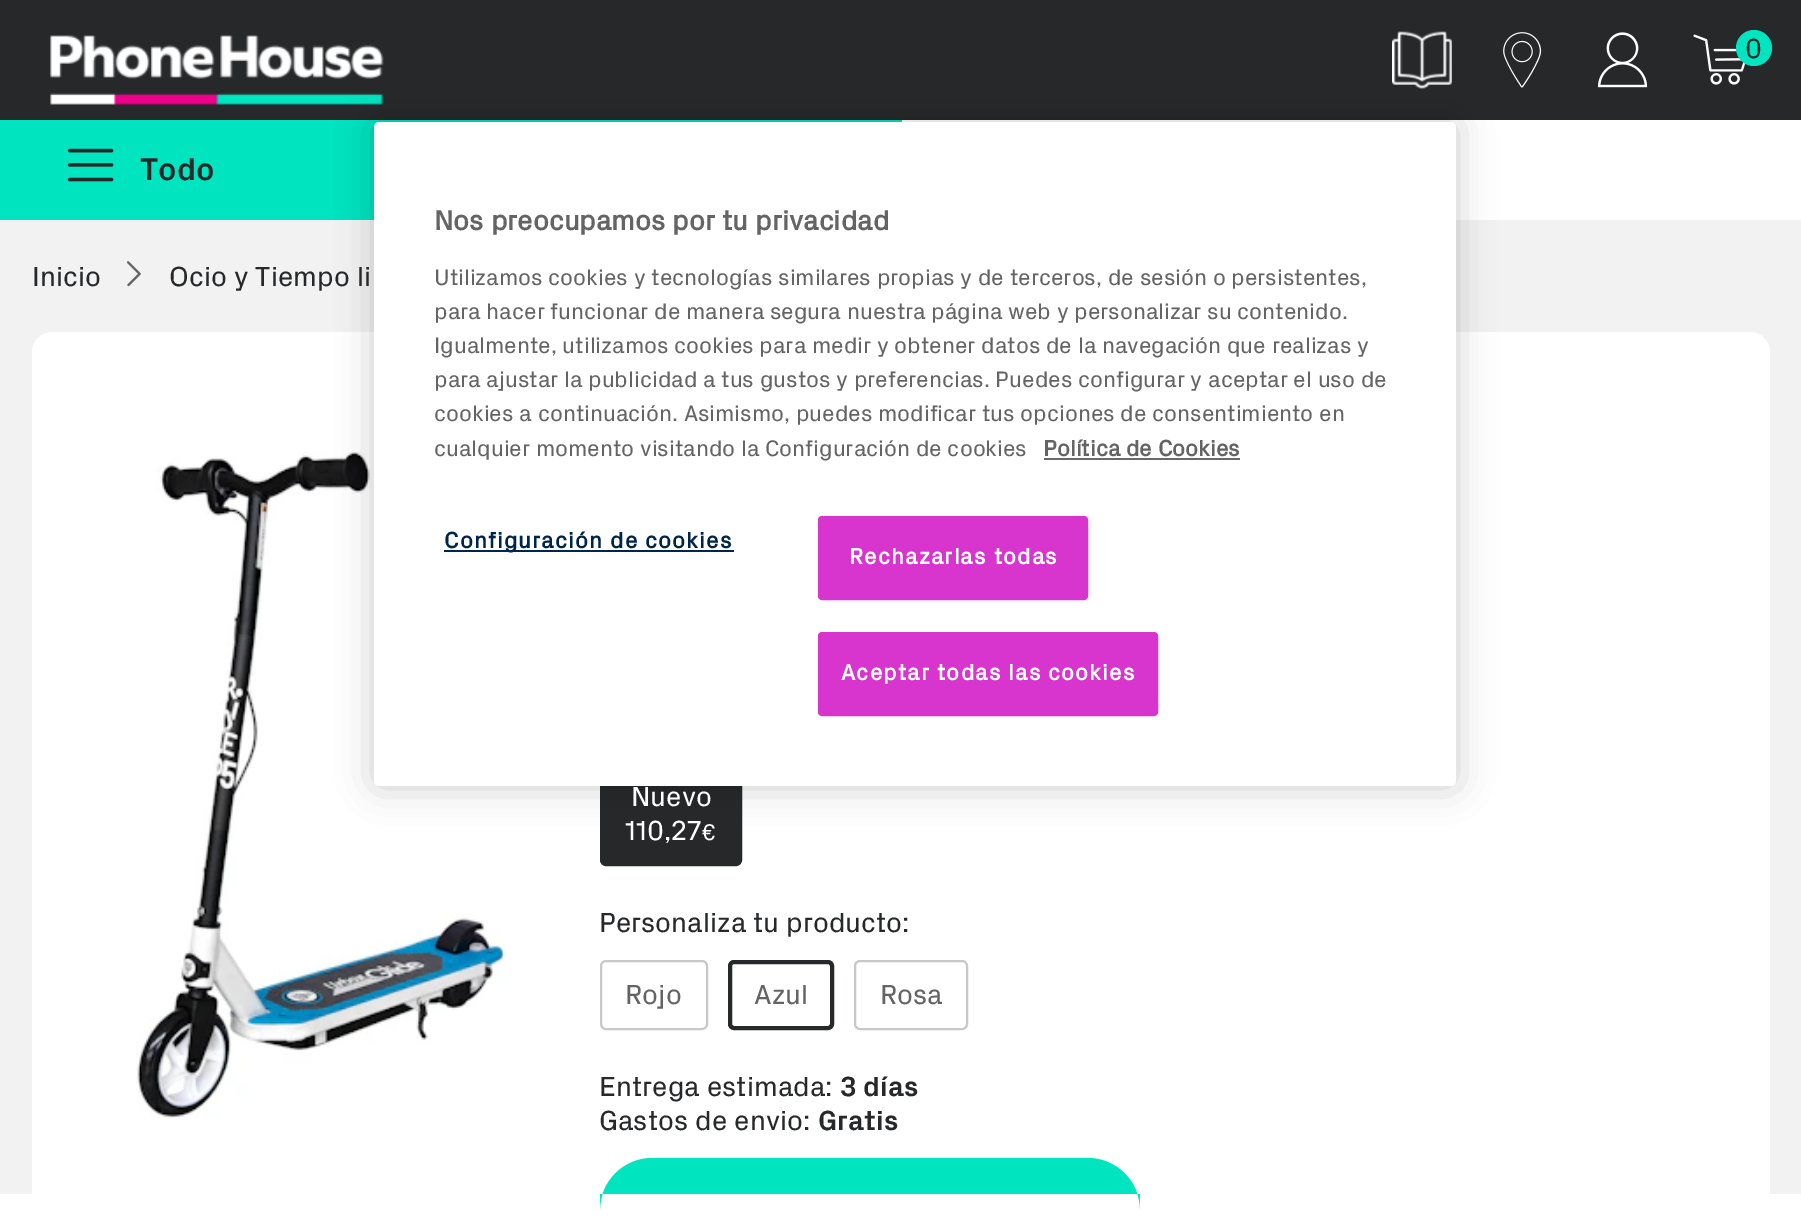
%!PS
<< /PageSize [1801 1217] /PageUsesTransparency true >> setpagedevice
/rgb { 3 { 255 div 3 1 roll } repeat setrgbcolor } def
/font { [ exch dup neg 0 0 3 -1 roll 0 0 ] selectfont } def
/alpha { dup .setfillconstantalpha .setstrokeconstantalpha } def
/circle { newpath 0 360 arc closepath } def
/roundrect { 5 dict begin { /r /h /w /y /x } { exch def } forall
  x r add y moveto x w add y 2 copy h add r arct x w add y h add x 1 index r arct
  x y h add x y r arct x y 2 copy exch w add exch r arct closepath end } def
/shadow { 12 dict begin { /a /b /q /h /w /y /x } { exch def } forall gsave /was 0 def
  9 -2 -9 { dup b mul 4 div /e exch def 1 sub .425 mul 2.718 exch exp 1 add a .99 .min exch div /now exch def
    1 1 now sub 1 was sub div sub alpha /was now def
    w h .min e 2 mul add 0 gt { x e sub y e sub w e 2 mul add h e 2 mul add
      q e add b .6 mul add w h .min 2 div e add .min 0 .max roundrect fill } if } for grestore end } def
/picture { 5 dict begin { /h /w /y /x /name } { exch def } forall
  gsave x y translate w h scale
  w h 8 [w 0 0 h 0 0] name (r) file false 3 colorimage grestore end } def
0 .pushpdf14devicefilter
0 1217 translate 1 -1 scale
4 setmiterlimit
255 255 255 rgb
0 0 1801 1217 rectfill
38 40 42 rgb
0 0 1801 120 rectfill
(img/1.rgb) 50 35 334 70 picture
(img/2.rgb) 1392 31 60 58 picture
(img/3.rgb) 1503 32 39 56 picture
(img/4.rgb) 1597 32 51 56 picture
(img/5.rgb) 1693 34 53 51 picture
0 228 192 rgb
1754 48 18 circle fill
0 120 902 100 rectfill
(img/6.rgb) 67 148 47 34 picture
242 242 242 rgb
0 220 1801 974 rectfill
(img/7.rgb) 127 261 14 26 picture
255 255 255 rgb
52 332 moveto 1750 332 lineto 1761 332 1770 341 1770 352 curveto 1770 1194 lineto 32 1194 lineto 32 352 lineto 32 341 41 332 52 332 curveto closepath fill
(img/8.rgb) 136 452 370 666 picture
38 40 42 rgb
602 764 138 100 4 roundrect gsave fill grestore
4 setlinewidth
stroke
200 200 200 rgb
2 setlinewidth
601 961 106 68 5 roundrect stroke
38 40 42 rgb
4 setlinewidth
730 962 102 66 4 roundrect stroke
200 200 200 rgb
2 setlinewidth
855 961 112 68 5 roundrect stroke
0 228 192 rgb
652 1158 moveto 1088 1158 lineto 1116.5 1158 1140 1181.5 1140 1210 curveto 1140 1194 lineto 600 1194 lineto 600 1210 lineto 600 1181.5 623.5 1158 652 1158 curveto closepath fill
0 0 0 rgb
374 122 1082 664 5 18 0.2 shadow
255 255 255 rgb
374 122 1082 664 5 roundrect fill
105 105 105 rgb
1044 458 196 2 rectfill
0 37 75 rgb
444 550 290 2 rectfill
215 53 205 rgb
819 517 268 82 3 roundrect gsave fill grestore
stroke
819 633 338 82 3 roundrect gsave fill grestore
stroke
/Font-Regular 28 font
38 40 42 rgb
1745 58 moveto (0) show
/Font-Bold 32 font
140 180 moveto (Todo) show
/Font-Regular 28 font
32 286 moveto (Inicio) show
169 286 moveto (Ocio y Tiempo li) show
255 255 255 rgb
631 806 moveto (Nuevo) show
625 840 moveto (110,27) show
/Font-Regular 23 font
701 840 moveto (€) show
/Font-Regular 28 font
38 40 42 rgb
599 932 moveto (Personaliza tu producto:) show
100 100 100 rgb
[
  [(Rojo) 625 1004]
  [(Azul) 754 1004]
  [(Rosa) 880 1004]
] { aload pop moveto show } forall
38 40 42 rgb
599 1096 moveto (Entrega estimada:) show
/Font-Bold 28 font
840 1096 moveto (3 días) show
/Font-Regular 28 font
599 1130 moveto (Gastos de envio:) show
/Font-Bold 28 font
818 1130 moveto (Gratis) show
/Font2-Bold 28 font
100 100 100 rgb
434 230 moveto (Nos preocupamos por tu privacidad) show
/Font-Regular 22.75 font
[
  [(Utilizamos cookies y tecnologías similares propias y de terceros, de sesión o persistentes,) 434 285]
  [(para hacer funcionar de manera segura nuestra página web y personalizar su contenido.) 434 319]
  [(Igualmente, utilizamos cookies para medir y obtener datos de la navegación que realizas y) 434 353]
  [(para ajustar la publicidad a tus gustos y preferencias. Puedes configurar y aceptar el uso de) 434 387]
  [(cookies a continuación. Asimismo, puedes modificar tus opciones de consentimiento en) 434 421]
  [(cualquier momento visitando la Configuración de cookies) 434 456]
] { aload pop moveto show } forall
/Font2-Bold 22.75 font
1043 456 moveto (Política de Cookies) show
0 37 75 rgb
444 548 moveto 1.1 0 (Configuración de cookies) ashow
255 255 255 rgb
849 564 moveto 1.1 0 (Rechazarlas todas) ashow
841 680 moveto 1.1 0 (Aceptar todas las cookies) ashow
.poppdf14devicefilter showpage
